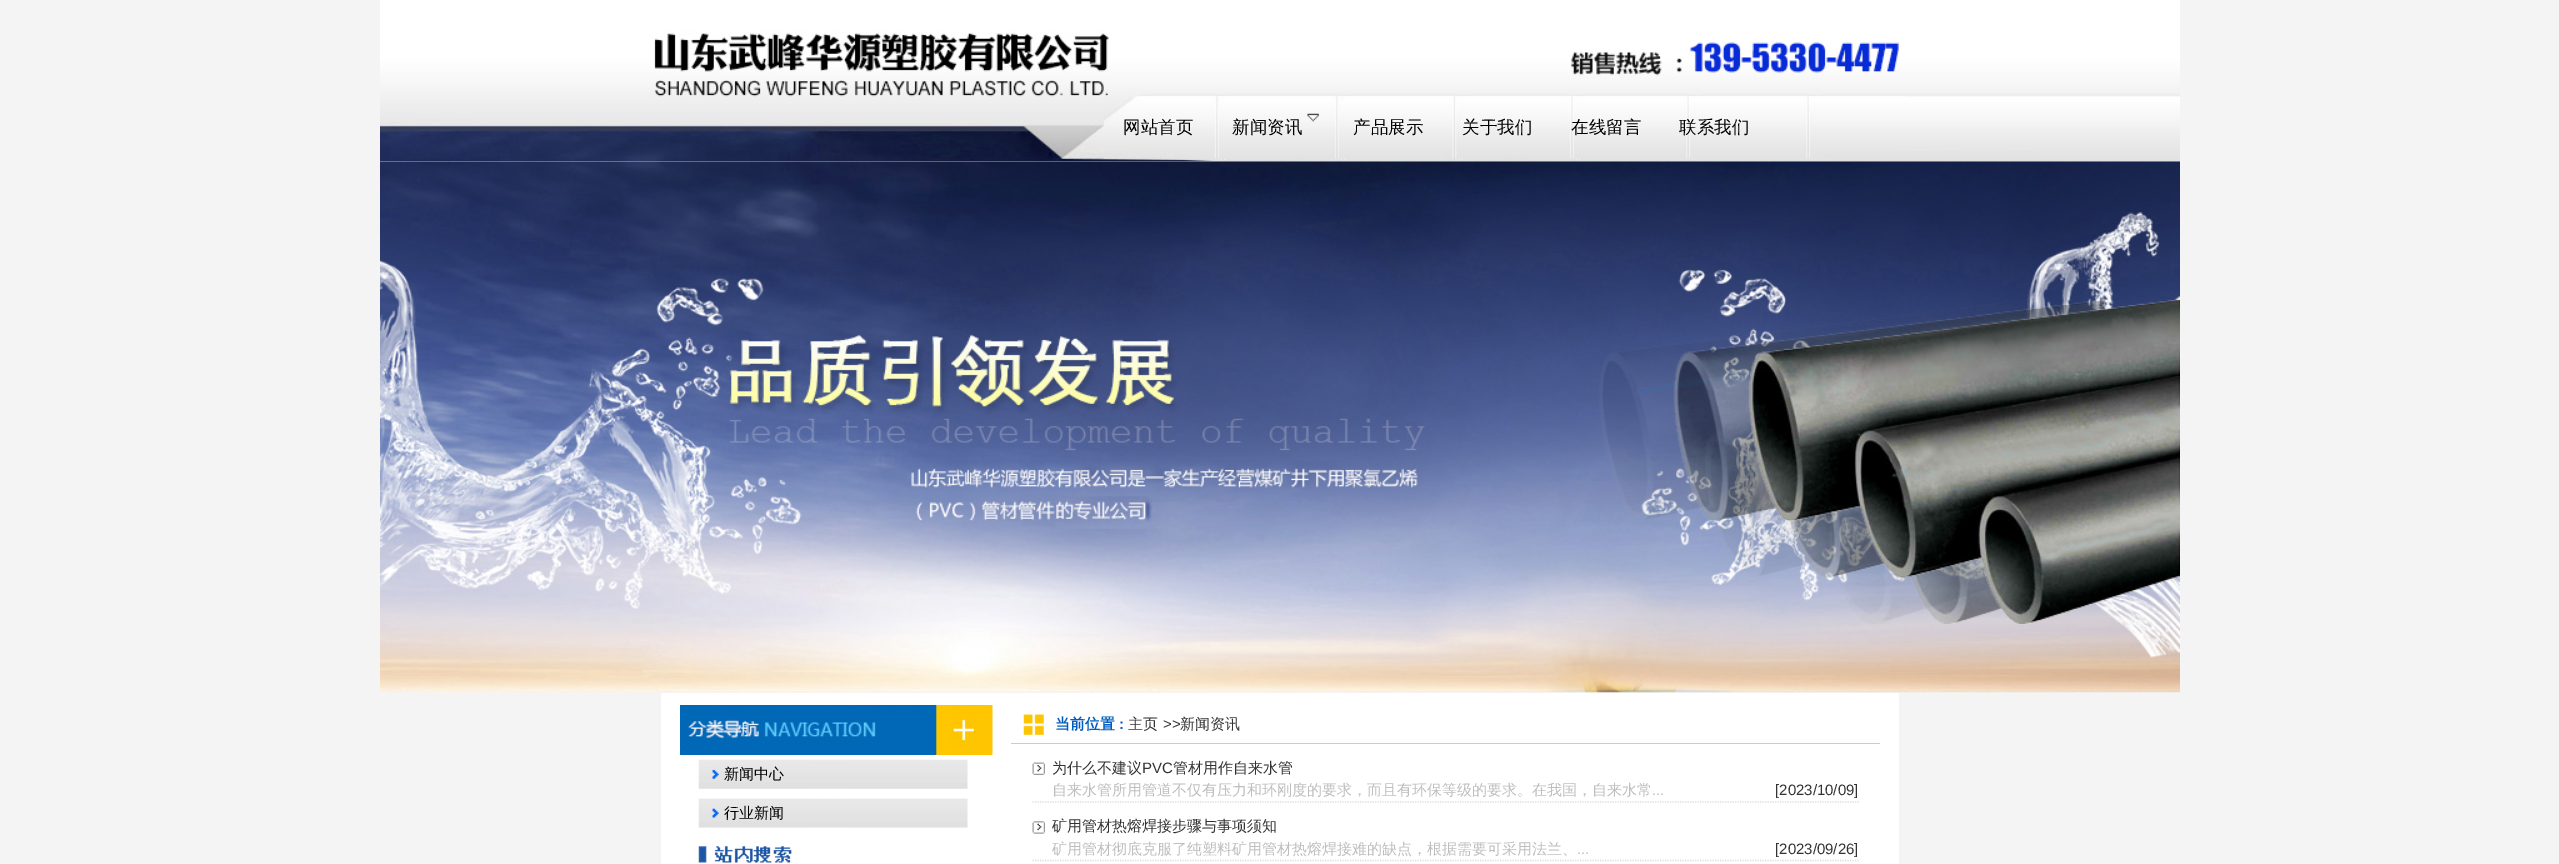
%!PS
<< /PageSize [2559 864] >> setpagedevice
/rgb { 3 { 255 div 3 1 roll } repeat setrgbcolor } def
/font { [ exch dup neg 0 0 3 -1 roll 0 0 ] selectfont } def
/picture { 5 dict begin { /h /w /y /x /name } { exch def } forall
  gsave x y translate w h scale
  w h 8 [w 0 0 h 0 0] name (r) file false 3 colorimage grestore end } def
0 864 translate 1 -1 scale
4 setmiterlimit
244 244 244 rgb
0 0 2559 864 rectfill
(img/1.rgb) 380 0 1800 162 picture
(img/2.rgb) 1103 96 803 63 picture
(img/3.rgb) 1307 113 12 9 picture
(img/4.rgb) 380 161 1800 532 picture
255 255 255 rgb
661 693 1238 171 rectfill
(img/5.rgb) 680 705 313 50 picture
(img/6.rgb) 698 759 270 30 picture
(img/7.rgb) 698 798 270 30 picture
(img/8.rgb) 698 846 94 17 picture
(img/9.rgb) 1023 714 21 21 picture
204 204 204 rgb
1011 743 869 1 rectfill
(img/10.rgb) 1032 762 13 13 picture
221 221 221 rgb
1.2 setlinewidth
[1.25 1.25] 0 setdash
1032.5 802 moveto 1859 802 lineto stroke
(img/11.rgb) 1032 821 13 13 picture
1032.5 860.5 moveto 1859 860.5 lineto stroke
/WenQuanYiZenHei-Medium 17.5 font
0 0 0 rgb
[
  [(网站首页) 1123 133]
  [(新闻资讯) 1232 133]
  [(产品展示) 1353 133]
  [(关于我们) 1462 133]
  [(在线留言) 1571 133]
  [(联系我们) 1679 133]
] { aload pop moveto show } forall
/WenQuanYiZenHei-Medium 15 font
724 779 moveto (新闻中心) show
724 818 moveto (行业新闻) show
/WenQuanYiZenHei-Bold 15 font
2 93 191 rgb
1055 729 moveto (当前位置) show
/LiberationSans-Bold 15 font
1119 729 moveto (:) show
/WenQuanYiZenHei-Medium 15 font
51 51 51 rgb
1128 729 moveto (主页) show
/LiberationSans-Regular 15 font
1163 729 moveto (>>) show
/WenQuanYiZenHei-Medium 15 font
1180 729 moveto (新闻资讯) show
1052 773 moveto (为什么不建议) show
/LiberationSans-Regular 15 font
1142 773 moveto (PVC) show
/WenQuanYiZenHei-Medium 15 font
1173 773 moveto (管材用作自来水管) show
190 190 190 rgb
1052 795 moveto (自来水管所用管道不仅有压力和环刚度的要求，而且有环保等级的要求。在我国，自来水常) show
/LiberationSans-Regular 15 font
1652 795 moveto (...) show
51 51 51 rgb
1775 795 moveto ([2023/10/09]) show
/WenQuanYiZenHei-Medium 15 font
1052 831 moveto (矿用管材热熔焊接步骤与事项须知) show
190 190 190 rgb
1052 854 moveto (矿用管材彻底克服了纯塑料矿用管材热熔焊接难的缺点，根据需要可采用法兰、) show
/LiberationSans-Regular 15 font
1577 854 moveto (...) show
51 51 51 rgb
1775 854 moveto ([2023/09/26]) show
showpage
